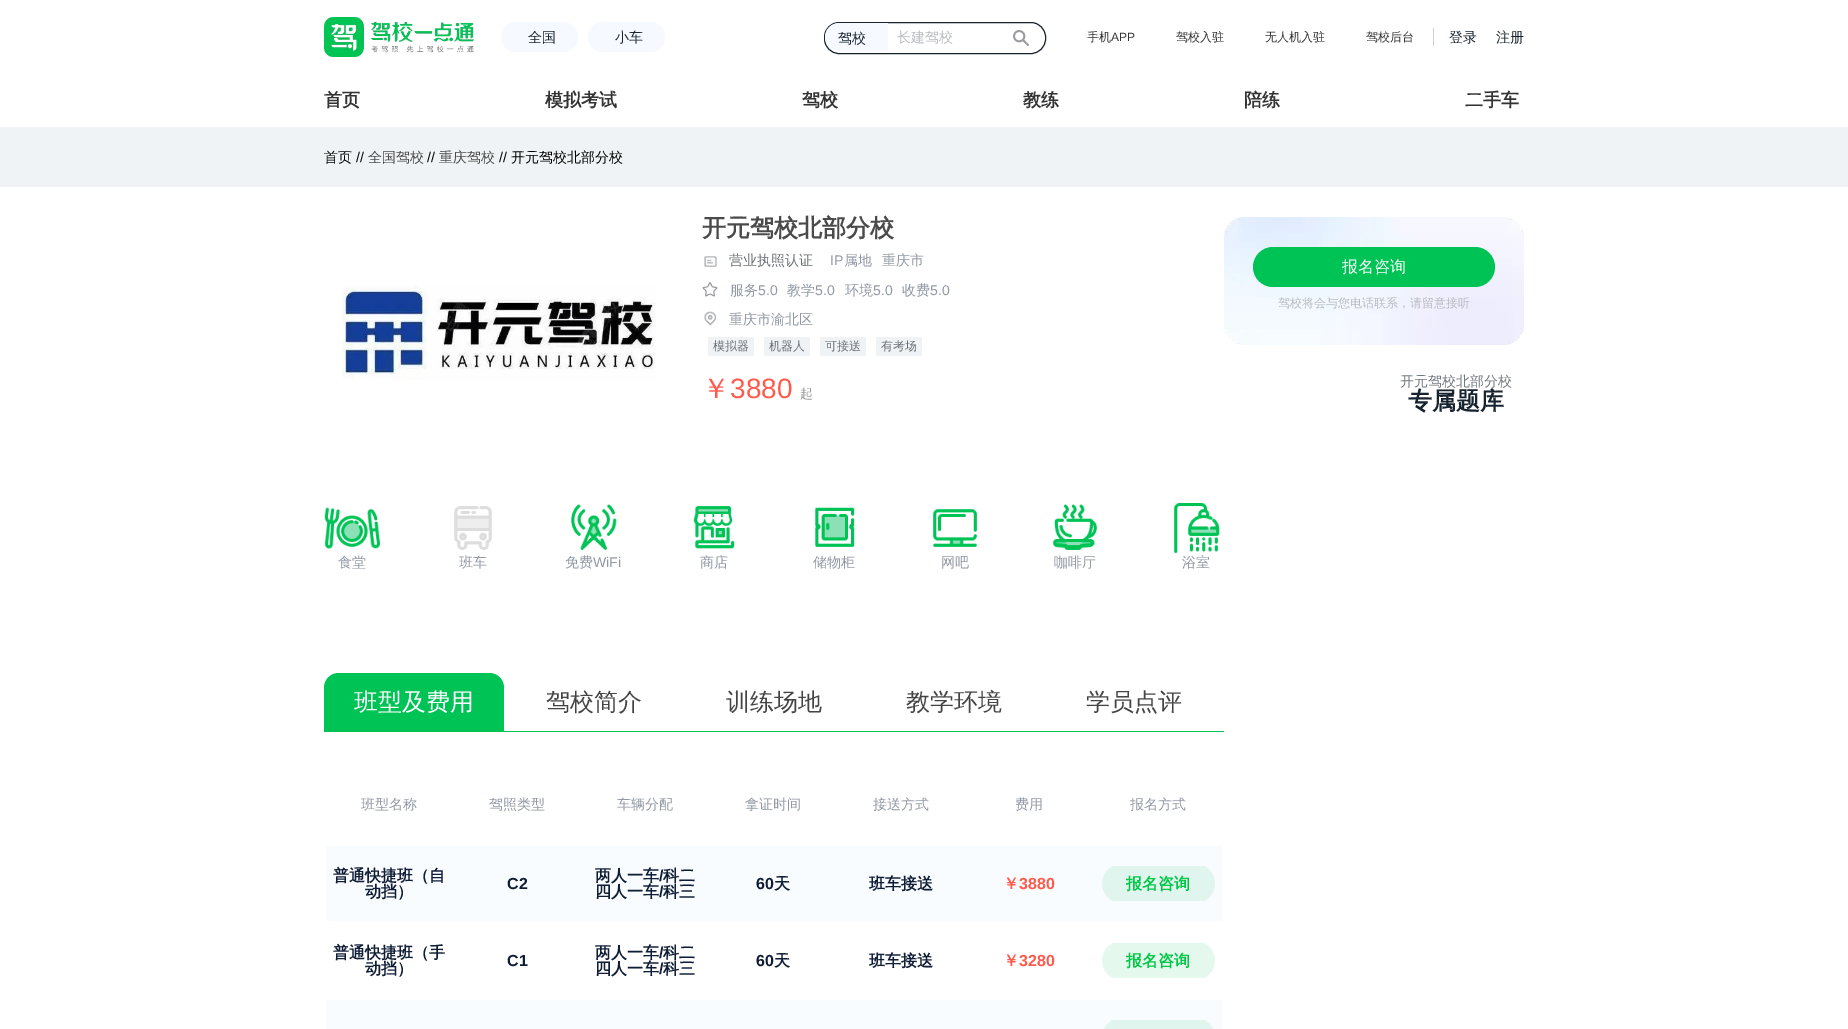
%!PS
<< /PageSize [1848 1029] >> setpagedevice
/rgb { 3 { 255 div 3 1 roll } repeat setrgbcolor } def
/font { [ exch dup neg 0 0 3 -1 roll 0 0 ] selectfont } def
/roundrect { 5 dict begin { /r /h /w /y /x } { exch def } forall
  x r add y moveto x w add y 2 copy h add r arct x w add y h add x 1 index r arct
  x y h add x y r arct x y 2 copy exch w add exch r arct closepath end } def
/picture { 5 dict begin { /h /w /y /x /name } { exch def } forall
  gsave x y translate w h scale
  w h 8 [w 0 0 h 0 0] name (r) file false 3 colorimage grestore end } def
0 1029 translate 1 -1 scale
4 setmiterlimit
239 243 245 rgb
0 0 1848 1029 rectfill
255 255 255 rgb
0 0 1848 127 rectfill
(img/1.rgb) 324 17 150 40 picture
246 249 255 rgb
501 22 77 30 15 roundrect fill
588 22 77 30 15 roundrect fill
23 35 47 rgb
824.5 22.5 221 31 14.5 roundrect stroke
246 249 255 rgb
839 23 moveto 888 23 lineto 888 51 lineto 839 51 lineto 831.5 51 825 44.5 825 37 curveto 825 29.5 831.5 23 839 23 curveto closepath fill
(img/2.rgb) 1013 30 16 16 picture
205 207 210 rgb
1433 28 1 18 rectfill
255 255 255 rgb
0 187 1848 842 rectfill
(img/3.rgb) 342 285 314 95 picture
(img/4.rgb) 704 256 13 11 picture
(img/5.rgb) 702 282 16 15 picture
(img/6.rgb) 704 311 13 15 picture
239 243 245 rgb
708 337 46 19 2 roundrect fill
764 337 46 19 2 roundrect fill
820 337 46 19 2 roundrect fill
876 337 46 19 2 roundrect fill
(img/7.rgb) 1224 217 300 128 picture
0 195 86 rgb
1253 247 242 40 20 roundrect fill
(img/8.rgb) 324 507 56 42 picture
(img/9.rgb) 454 506 38 44 picture
(img/10.rgb) 571 504 46 46 picture
(img/11.rgb) 693 506 42 43 picture
(img/12.rgb) 815 507 40 40 picture
(img/13.rgb) 933 509 44 38 picture
(img/14.rgb) 1053 504 44 46 picture
(img/15.rgb) 1174 503 46 50 picture
339 673 moveto 489 673 lineto 497.5 673 504 679.5 504 688 curveto 504 732 lineto 324 732 lineto 324 688 lineto 324 679.5 330.5 673 339 673 curveto closepath fill
504 731 720 1 rectfill
249 252 255 rgb
326 846 896 75 rectfill
(img/16.rgb) 1102 866 113 35 picture
(img/17.rgb) 1102 943 113 35 picture
326 1000 896 29 rectfill
(img/18.rgb) 1104 1020 109 9 picture
/WenQuanYiZenHei-Medium 14 font
23 35 47 rgb
[
  [(全国) 528 42]
  [(小车) 615 42]
  [(驾校) 838 43]
] { aload pop moveto show } forall
184 187 192 rgb
897 42 moveto (长建驾校) show
/WenQuanYiZenHei-Medium 12 font
51 51 51 rgb
1087 41 moveto (手机) show
/LiberationSans-Regular 12 font
1111 41 moveto (APP) show
/WenQuanYiZenHei-Medium 12 font
[
  [(驾校入驻) 1176 41]
  [(无人机入驻) 1265 41]
  [(驾校后台) 1366 41]
] { aload pop moveto show } forall
/WenQuanYiZenHei-Medium 14 font
23 35 47 rgb
1449 42 moveto (登录) show
1496 42 moveto (注册) show
/WenQuanYiZenHei-Bold 18 font
51 51 51 rgb
[
  [(首页) 324 106]
  [(模拟考试) 545 106]
  [(驾校) 802 106]
  [(教练) 1023 106]
  [(陪练) 1244 106]
  [(二手车) 1465 106]
] { aload pop moveto show } forall
/WenQuanYiZenHei-Medium 14 font
0 0 0 rgb
324 162 moveto (首页) show
/LiberationSans-Regular 14 font
356 162 moveto (//) show
/WenQuanYiZenHei-Medium 14 font
74 74 74 rgb
368 162 moveto (全国驾校) show
/LiberationSans-Regular 14 font
0 0 0 rgb
427 162 moveto (//) show
/WenQuanYiZenHei-Medium 14 font
74 74 74 rgb
439 162 moveto (重庆驾校) show
/LiberationSans-Regular 14 font
0 0 0 rgb
499 162 moveto (//) show
/WenQuanYiZenHei-Medium 14 font
511 162 moveto (开元驾校北部分校) show
/WenQuanYiZenHei-Bold 24 font
74 74 74 rgb
702 236 moveto (开元驾校北部分校) show
/WenQuanYiZenHei-Medium 14 font
106 111 119 rgb
729 265 moveto (营业执照认证) show
/LiberationSans-Regular 14 font
146 153 165 rgb
830 265 moveto (IP) show
/WenQuanYiZenHei-Medium 14 font
[
  [(属地) 844 265]
  [(重庆市) 882 265]
  [(服务) 730 295]
] { aload pop moveto show } forall
/LiberationSans-Regular 14 font
758 295 moveto (5.0) show
/WenQuanYiZenHei-Medium 14 font
787 295 moveto (教学) show
/LiberationSans-Regular 14 font
815 295 moveto (5.0) show
/WenQuanYiZenHei-Medium 14 font
845 295 moveto (环境) show
/LiberationSans-Regular 14 font
873 295 moveto (5.0) show
/WenQuanYiZenHei-Medium 14 font
902 295 moveto (收费) show
/LiberationSans-Regular 14 font
930 295 moveto (5.0) show
/WenQuanYiZenHei-Medium 14 font
729 324 moveto (重庆市渝北区) show
/WenQuanYiZenHei-Medium 12 font
106 111 119 rgb
[
  [(模拟器) 713 350]
  [(机器人) 769 350]
  [(可接送) 825 350]
  [(有考场) 881 350]
] { aload pop moveto show } forall
/WenQuanYiZenHei-Medium 28 font
255 91 76 rgb
702 398 moveto (￥) show
/LiberationSans-Regular 28 font
730 398 moveto (3880) show
/WenQuanYiZenHei-Medium 13 font
153 153 153 rgb
800 398 moveto (起) show
/WenQuanYiZenHei-Medium 16 font
255 255 255 rgb
1342 272 moveto (报名咨询) show
/WenQuanYiZenHei-Medium 12 font
184 187 192 rgb
1278 307 moveto (驾校将会与您电话联系，请留意接听) show
/WenQuanYiZenHei-Medium 14 font
113 121 128 rgb
1400 386 moveto (开元驾校北部分校) show
/WenQuanYiZenHei-Bold 24 font
23 35 47 rgb
1408 409 moveto (专属题库) show
/WenQuanYiZenHei-Medium 14 font
146 153 165 rgb
[
  [(食堂) 338 567]
  [(班车) 459 567]
  [(免费) 565 567]
] { aload pop moveto show } forall
/LiberationSans-Regular 14 font
593 567 moveto (WiFi) show
/WenQuanYiZenHei-Medium 14 font
[
  [(商店) 700 567]
  [(储物柜) 813 567]
  [(网吧) 941 567]
  [(咖啡厅) 1054 567]
  [(浴室) 1182 567]
] { aload pop moveto show } forall
/WenQuanYiZenHei-Medium 24 font
255 255 255 rgb
354 710 moveto (班型及费用) show
68 68 68 rgb
[
  [(驾校简介) 546 710]
  [(训练场地) 726 710]
  [(教学环境) 906 710]
  [(学员点评) 1086 710]
] { aload pop moveto show } forall
/WenQuanYiZenHei-Medium 14 font
146 153 165 rgb
[
  [(班型名称) 361 809]
  [(驾照类型) 489 809]
  [(车辆分配) 617 809]
  [(拿证时间) 745 809]
  [(接送方式) 873 809]
  [(费用) 1015 809]
  [(报名方式) 1130 809]
] { aload pop moveto show } forall
/WenQuanYiZenHei-Bold 16 font
16 29 55 rgb
333 881 moveto (普通快捷班（自) show
365 897 moveto (动挡）) show
/LiberationSans-Bold 16 font
507 889 moveto (C2) show
/WenQuanYiZenHei-Bold 16 font
595 881 moveto (两人一车) show
/LiberationSans-Bold 16 font
659 881 moveto (/) show
/WenQuanYiZenHei-Bold 16 font
663 881 moveto (科二) show
595 897 moveto (四人一车) show
/LiberationSans-Bold 16 font
659 897 moveto (/) show
/WenQuanYiZenHei-Bold 16 font
663 897 moveto (科三) show
/LiberationSans-Bold 16 font
756 889 moveto (60) show
/WenQuanYiZenHei-Bold 16 font
774 889 moveto (天) show
869 889 moveto (班车接送) show
255 91 76 rgb
1003 889 moveto (￥) show
/LiberationSans-Bold 16 font
1019 889 moveto (3880) show
/WenQuanYiZenHei-Bold 16 font
0 199 69 rgb
1126 889 moveto (报名咨询) show
16 29 55 rgb
333 958 moveto (普通快捷班（手) show
365 974 moveto (动挡）) show
/LiberationSans-Bold 16 font
507 966 moveto (C1) show
/WenQuanYiZenHei-Bold 16 font
595 958 moveto (两人一车) show
/LiberationSans-Bold 16 font
659 958 moveto (/) show
/WenQuanYiZenHei-Bold 16 font
663 958 moveto (科二) show
595 974 moveto (四人一车) show
/LiberationSans-Bold 16 font
659 974 moveto (/) show
/WenQuanYiZenHei-Bold 16 font
663 974 moveto (科三) show
/LiberationSans-Bold 16 font
756 966 moveto (60) show
/WenQuanYiZenHei-Bold 16 font
774 966 moveto (天) show
869 966 moveto (班车接送) show
255 91 76 rgb
1003 966 moveto (￥) show
/LiberationSans-Bold 16 font
1019 966 moveto (3280) show
/WenQuanYiZenHei-Bold 16 font
0 199 69 rgb
1126 966 moveto (报名咨询) show
showpage
